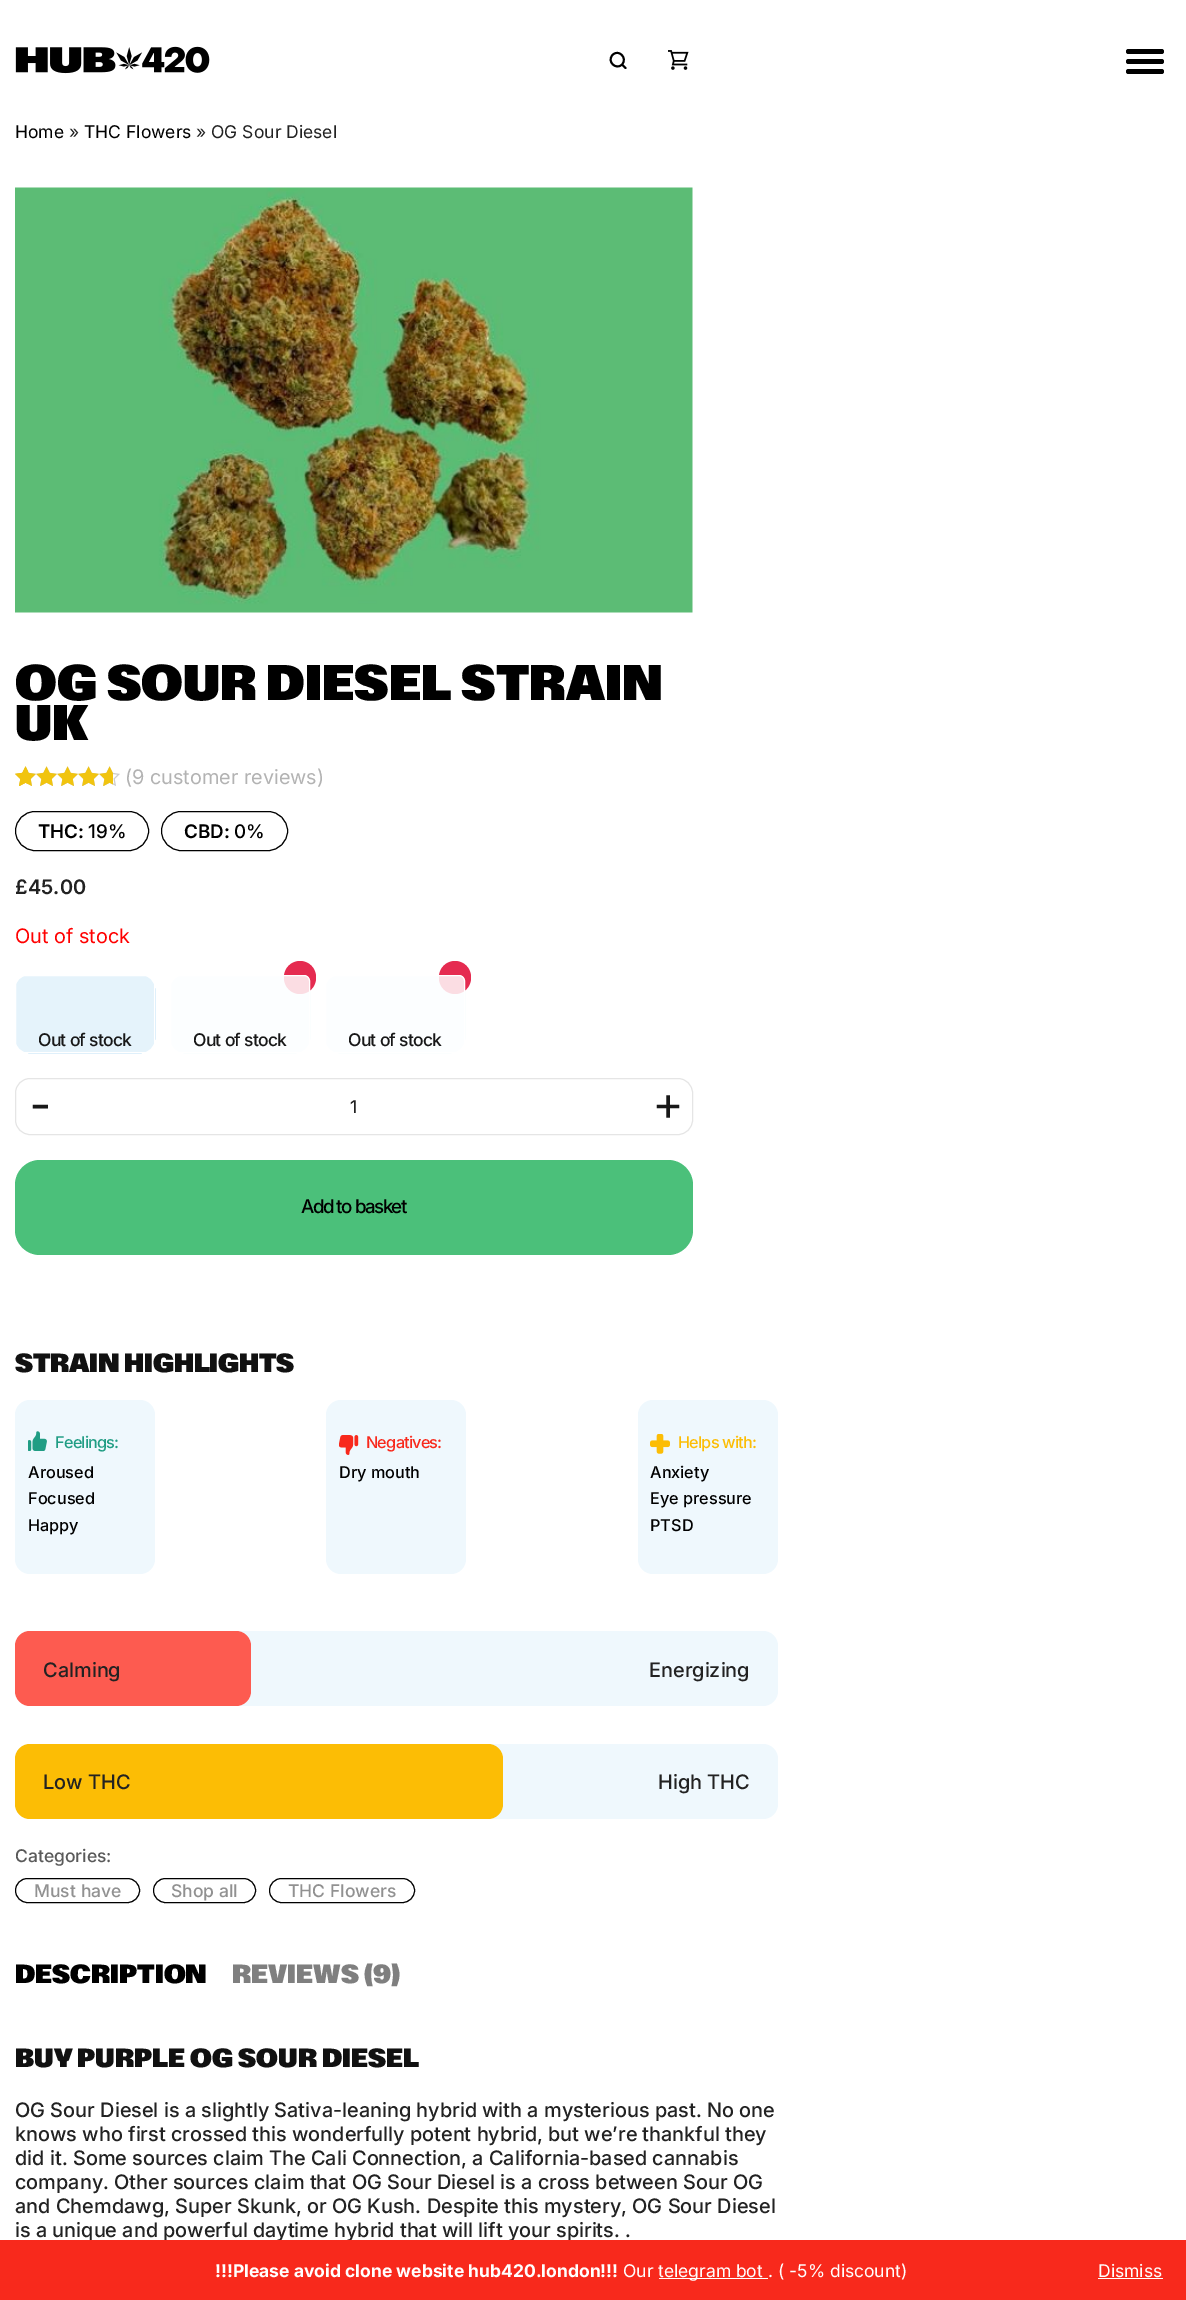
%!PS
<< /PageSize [1186 2300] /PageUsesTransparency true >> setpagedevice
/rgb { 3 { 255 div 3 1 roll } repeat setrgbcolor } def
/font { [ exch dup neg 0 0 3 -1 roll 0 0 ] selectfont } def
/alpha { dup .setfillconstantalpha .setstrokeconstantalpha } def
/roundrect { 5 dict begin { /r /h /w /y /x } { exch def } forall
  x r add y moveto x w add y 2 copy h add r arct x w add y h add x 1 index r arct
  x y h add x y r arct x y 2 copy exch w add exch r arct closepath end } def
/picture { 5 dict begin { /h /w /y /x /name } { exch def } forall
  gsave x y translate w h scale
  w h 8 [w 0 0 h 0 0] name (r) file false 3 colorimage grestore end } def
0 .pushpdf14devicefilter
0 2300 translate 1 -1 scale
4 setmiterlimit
255 255 255 rgb
0 0 1186 2300 rectfill
(img/1.rgb) 15 46 195 28 picture
0 0 0 rgb
1.9 setlinewidth
1 setlinecap
1 setlinejoin
625.5 68 moveto 622 64.5 lineto 622 64.5 moveto 628 58 618.5 48.5 612.5 55 curveto 606.5 61.5 616 70.5 622 64.5 curveto closepath stroke
(img/2.rgb) 668 50 21 20 picture
1126 49 38 5 2.5 roundrect fill
1126 59 38 5 2.5 roundrect fill
1126 69 38 5 2.5 roundrect fill
(img/3.rgb) 15 187 678 426 picture
(img/4.rgb) 15 766 105 20 picture
(img/5.rgb) 15 766 98 20 picture
(img/6.rgb) 15 766 13 20 picture
1 setlinewidth
0 setlinecap
0 setlinejoin
15.5 811.5 133 39 19.5 roundrect stroke
161.5 811.5 126 39 19.5 roundrect stroke
91 181 232 rgb
15.5 975.5 139 77 14.5 roundrect gsave fill grestore
stroke
0.84 alpha
255 255 255 rgb
15.5 975.5 139 77 5.5 roundrect fill
1 alpha
15.5 975.5 139 77 5.5 roundrect stroke
238 247 253 rgb
170.5 975.5 139 77 14.5 roundrect gsave fill grestore
stroke
229 43 80 rgb
284 961 32 33 16 roundrect fill
0.84 alpha
255 255 255 rgb
170.5 975.5 139 77 5.5 roundrect fill
1 alpha
170.5 975.5 139 77 5.5 roundrect stroke
238 247 253 rgb
325.5 975.5 139 77 14.5 roundrect gsave fill grestore
stroke
229 43 80 rgb
439 961 32 33 16 roundrect fill
0.84 alpha
255 255 255 rgb
325.5 975.5 139 77 5.5 roundrect fill
1 alpha
325.5 975.5 139 77 5.5 roundrect stroke
229 229 229 rgb
15.5 1078.5 677 56 14.5 roundrect stroke
75 192 122 rgb
15 1160 678 95 25 roundrect fill
239 248 253 rgb
15 1400 140 174 15 roundrect fill
(img/7.rgb) 28 1431 19 20 picture
326 1400 140 174 15 roundrect fill
(img/8.rgb) 339 1435 20 20 picture
638 1400 140 174 15 roundrect fill
(img/9.rgb) 650 1434 20 20 picture
15 1631 763 75 15 roundrect fill
253 91 80 rgb
15 1631 236 75 15 roundrect fill
239 248 253 rgb
15 1744 763 75 15 roundrect fill
252 189 5 rgb
15 1744 488 75 15 roundrect fill
0 0 0 rgb
15.5 1878.5 124 24 12 roundrect stroke
153.5 1878.5 102 24 12 roundrect stroke
269.5 1878.5 145 24 12 roundrect stroke
/Inter-Regular 17.5 font
15 138 moveto (Home) show
34 34 34 rgb
69 138 moveto (») show
0 0 0 rgb
84 138 moveto (THC Flowers) show
34 34 34 rgb
196 138 moveto (» OG Sour Diesel) show
/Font-Black 50 font
0 0 0 rgb
15 700 moveto (OG SOUR DIESEL STRAIN) show
15 740 moveto (UK) show
/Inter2-Regular 20 font
179 179 179 rgb
125 784 moveto (\(9) show
150 784 moveto (customer reviews\)) show
/Inter-SemiBold 18.75 font
0 0 0 rgb
38 838 moveto (THC:) show
/Inter-Medium 18.75 font
88 838 moveto (19%) show
/Inter-SemiBold 18.75 font
184 838 moveto (CBD:) show
/Inter2-Medium 18.75 font
234 838 moveto (0%) show
/Inter2-SemiBold 20 font
34 34 34 rgb
15 894 moveto (£) show
28 894 moveto (45.00) show
/Inter2-Regular 20 font
255 0 0 rgb
15 943 moveto (Out of stock) show
/Inter2-Medium 17.5 font
24 24 24 rgb
38 1046 moveto -0.75 0 (Out of stock) ashow
193 1046 moveto -0.75 0 (Out of stock) ashow
348 1046 moveto -0.75 0 (Out of stock) ashow
/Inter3-Regular 48 font
30 1121 moveto (-) show
/Inter2-Medium 17.5 font
34 34 34 rgb
350 1113 moveto (1) show
/Inter3-Regular 48 font
24 24 24 rgb
653 1120 moveto (+) show
/Inter2-Medium 18.75 font
0 0 0 rgb
301 1213 moveto -1.5 0 (Add to basket) ashow
/Font-Black 26.25 font
17 17 17 rgb
15 1372 moveto -0.25 0 (STRAIN HIGHLIGHTS) ashow
/Inter2-Medium 16.25 font
32 157 132 rgb
55 1448 moveto -0.8 0 (Feelings:) ashow
0 0 0 rgb
[
  [(Aroused) 28 1478]
  [(Focused) 28 1504]
  [(Happy) 28 1531]
] { aload pop moveto show } forall
248 41 28 rgb
366 1448 moveto -0.8 0 (Negatives:) ashow
0 0 0 rgb
339 1478 moveto (Dry mouth) show
252 189 5 rgb
678 1448 moveto -0.8 0 (Helps with:) ashow
0 0 0 rgb
[
  [(Anxiety) 650 1478]
  [(Eye pressure) 650 1504]
  [(PTSD) 650 1531]
] { aload pop moveto show } forall
/Inter3-Medium 20 font
34 34 34 rgb
[
  [(Calming) 43 1677]
  [(Energizing) 649 1677]
  [(Low THC) 43 1789]
  [(High THC) 658 1789]
] { aload pop moveto show } forall
/Inter2-Medium 17.5 font
90 90 90 rgb
15 1862 moveto (Categories:) show
145 145 145 rgb
[
  [(Must have) 34 1897]
  [(Shop all) 171 1897]
  [(THC Flowers) 288 1897]
] { aload pop moveto show } forall
/Font-Black 26.25 font
0 0 0 rgb
15 1983 moveto (DESCRIPTION) show
127 127 127 rgb
232 1983 moveto (REVIEWS \(9\)) show
17 17 17 rgb
15 2067 moveto (BUY PURPLE OG SOUR DIESEL) show
/Inter3-Medium 20 font
34 34 34 rgb
[
  [(OG Sour Diesel is a slightly Sativa-leaning hybrid with a mysterious past. No one) 15 2117]
  [(knows who first crossed this wonderfully potent hybrid, but we’re thankful they) 15 2141]
  [(did it. Some sources claim The Cali Connection, a California-based cannabis) 15 2165]
  [(company. Other sources claim that OG Sour Diesel is a cross between Sour OG) 15 2189]
  [(and Chemdawg, Super Skunk, or OG Kush. Despite this mystery, OG Sour Diesel) 15 2213]
  [(is a unique and powerful daytime hybrid that will lift your spirits. .) 15 2237]
] { aload pop moveto show } forall
248 41 28 rgb
0 2240 1186 60 rectfill
/Inter-Bold 17.5 font
255 255 255 rgb
215 2277 moveto (!!!Please avoid clone website hub420.london!!!) show
/Inter-Regular 17.5 font
623 2277 moveto (Our) show
659 2278 109 1 rectfill
[
  [(telegram bot) 658 2277]
  [(. \( -5% discount\)) 768 2277]
  [(Dismiss) 1098 2277]
] { aload pop moveto show } forall
1098 2278 65 1 rectfill
.poppdf14devicefilter showpage
